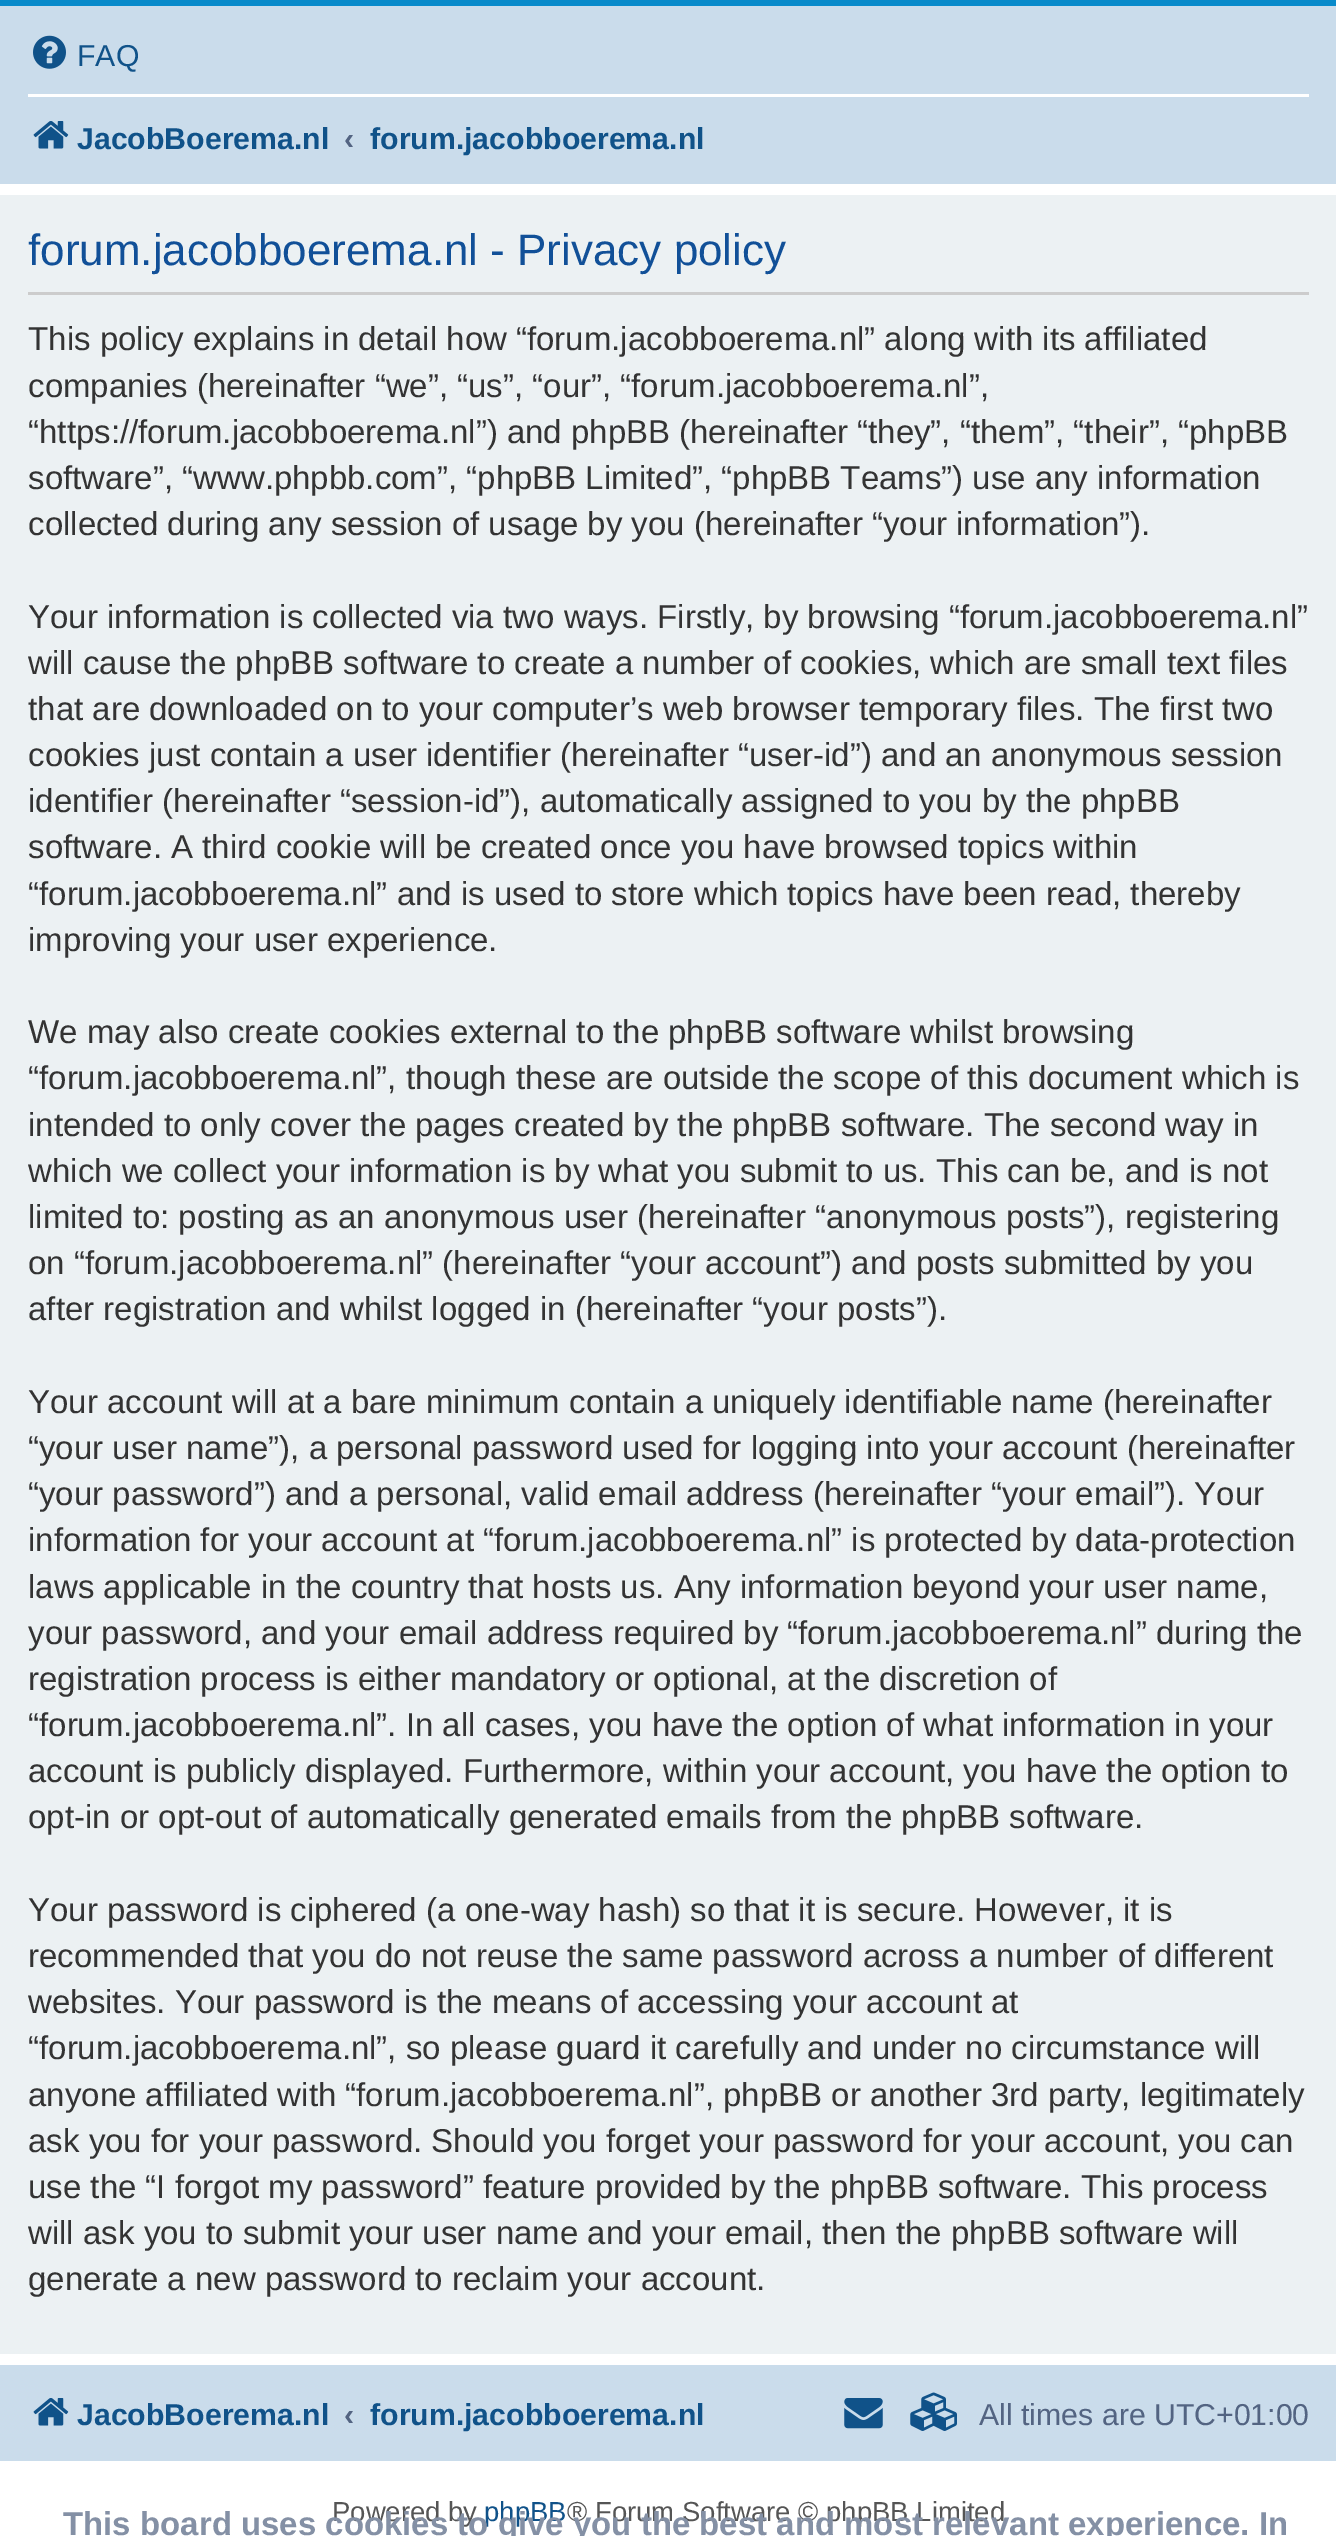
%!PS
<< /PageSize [1336 2536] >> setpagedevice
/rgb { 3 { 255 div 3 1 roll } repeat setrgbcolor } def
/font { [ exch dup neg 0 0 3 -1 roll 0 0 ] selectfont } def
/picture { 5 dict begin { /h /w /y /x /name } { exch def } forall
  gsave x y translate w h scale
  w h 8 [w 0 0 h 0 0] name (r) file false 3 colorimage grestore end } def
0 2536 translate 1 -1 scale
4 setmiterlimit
255 255 255 rgb
0 0 1336 2536 rectfill
gsave 0 0 moveto 1336 0 lineto 1336 6 lineto 0 6 lineto closepath clip newpath
<< /ShadingType 2 /ColorSpace /DeviceRGB /Coords [668 -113 668 140] /Extend [true true] /Function << /FunctionType 3 /Domain [0 1] /Functions [<< /FunctionType 2 /Domain [0 1] /C0 [0.416 0.808 1] /C1 [0 0.463 0.694] /N 1 >> << /FunctionType 2 /Domain [0 1] /C0 [0 0.463 0.694] /C1 [0.071 0.639 0.922] /N 1 >>] /Bounds [0.02] /Encode [0 1 0 1] >> >> shfill grestore
202 220 235 rgb
0 6 1336 178 rectfill
(img/1.rgb) 33 35 33 34 picture
255 255 255 rgb
28 94 1281 3 rectfill
(img/2.rgb) 33 121 36 28 picture
[
  [0 195 1336 2159 236 241 243]
  [28 292 1281 3 204 204 204]
  [0 2365 1336 96 202 220 235]
] { aload pop rgb rectfill } forall
(img/2.rgb) 33 2398 36 28 picture
(img/3.rgb) 844 2398 39 31 picture
(img/4.rgb) 910 2392 47 39 picture
/LiberationSans-Regular 30.25 font
16 82 137 rgb
77 66 moveto (FAQ) show
/LiberationSans-Bold 30.25 font
77 149 moveto (JacobBoerema.nl) show
83 100 130 rgb
344 149 moveto (‹) show
16 82 137 rgb
370 149 moveto (forum.jacobboerema.nl) show
/LiberationSans-Regular 44 font
17 80 152 rgb
28 265 moveto (forum.jacobboerema.nl - Privacy policy) show
/LiberationSans-Regular 33 font
51 51 51 rgb
[
  [(This policy explains in detail how “forum.jacobboerema.nl” along with its affiliated) 28 350]
  [(companies \(hereinafter “we”, “us”, “our”, “forum.jacobboerema.nl”,) 28 397]
  [(“https://forum.jacobboerema.nl”\) and phpBB \(hereinafter “they”, “them”, “their”, “phpBB) 28 443]
  [(software”, “www.phpbb.com”, “phpBB Limited”, “phpBB Teams”\) use any information) 28 489]
  [(collected during any session of usage by you \(hereinafter “your information”\).) 28 535]
  [(Your information is collected via two ways. Firstly, by browsing “forum.jacobboerema.nl”) 28 628]
  [(will cause the phpBB software to create a number of cookies, which are small text files) 28 674]
  [(that are downloaded on to your computer’s web browser temporary files. The first two) 28 720]
  [(cookies just contain a user identifier \(hereinafter “user-id”\) and an anonymous session) 28 766]
  [(identifier \(hereinafter “session-id”\), automatically assigned to you by the phpBB) 28 812]
  [(software. A third cookie will be created once you have browsed topics within) 28 858]
  [(“forum.jacobboerema.nl” and is used to store which topics have been read, thereby) 28 905]
  [(improving your user experience.) 28 951]
  [(We may also create cookies external to the phpBB software whilst browsing) 28 1043]
  [(“forum.jacobboerema.nl”, though these are outside the scope of this document which is) 28 1089]
  [(intended to only cover the pages created by the phpBB software. The second way in) 28 1136]
  [(which we collect your information is by what you submit to us. This can be, and is not) 28 1182]
  [(limited to: posting as an anonymous user \(hereinafter “anonymous posts”\), registering) 28 1228]
  [(on “forum.jacobboerema.nl” \(hereinafter “your account”\) and posts submitted by you) 28 1274]
  [(after registration and whilst logged in \(hereinafter “your posts”\).) 28 1320]
  [(Your account will at a bare minimum contain a uniquely identifiable name \(hereinafter) 28 1413]
  [(“your user name”\), a personal password used for logging into your account \(hereinafter) 28 1459]
  [(“your password”\) and a personal, valid email address \(hereinafter “your email”\). Your) 28 1505]
  [(information for your account at “forum.jacobboerema.nl” is protected by data-protection) 28 1551]
  [(laws applicable in the country that hosts us. Any information beyond your user name,) 28 1598]
  [(your password, and your email address required by “forum.jacobboerema.nl” during the) 28 1644]
  [(registration process is either mandatory or optional, at the discretion of) 28 1690]
  [(“forum.jacobboerema.nl”. In all cases, you have the option of what information in your) 28 1736]
  [(account is publicly displayed. Furthermore, within your account, you have the option to) 28 1782]
  [(opt-in or opt-out of automatically generated emails from the phpBB software.) 28 1828]
  [(Your password is ciphered \(a one-way hash\) so that it is secure. However, it is) 28 1921]
  [(recommended that you do not reuse the same password across a number of different) 28 1967]
  [(websites. Your password is the means of accessing your account at) 28 2013]
  [(“forum.jacobboerema.nl”, so please guard it carefully and under no circumstance will) 28 2059]
  [(anyone affiliated with “forum.jacobboerema.nl”, phpBB or another 3rd party, legitimately) 28 2106]
  [(ask you for your password. Should you forget your password for your account, you can) 28 2152]
  [(use the “I forgot my password” feature provided by the phpBB software. This process) 28 2198]
  [(will ask you to submit your user name and your email, then the phpBB software will) 28 2244]
  [(generate a new password to reclaim your account.) 28 2290]
] { aload pop moveto show } forall
/LiberationSans-Bold 30.25 font
16 82 137 rgb
77 2425 moveto (JacobBoerema.nl) show
83 100 130 rgb
344 2425 moveto (‹) show
16 82 137 rgb
370 2425 moveto (forum.jacobboerema.nl) show
/LiberationSans-Regular 30.25 font
83 100 130 rgb
979 2425 moveto (All times are UTC+01:00) show
/LiberationSans-Regular 27.5 font
85 85 85 rgb
332 2521 moveto (Powered by) show
16 82 137 rgb
484 2521 moveto (phpBB) show
85 85 85 rgb
567 2521 moveto (® Forum Software © phpBB Limited) show
/LiberationSans-Bold 33 font
132 144 165 rgb
63 2535 moveto (This board uses cookies to give you the best and most relevant experience. In) show
showpage
